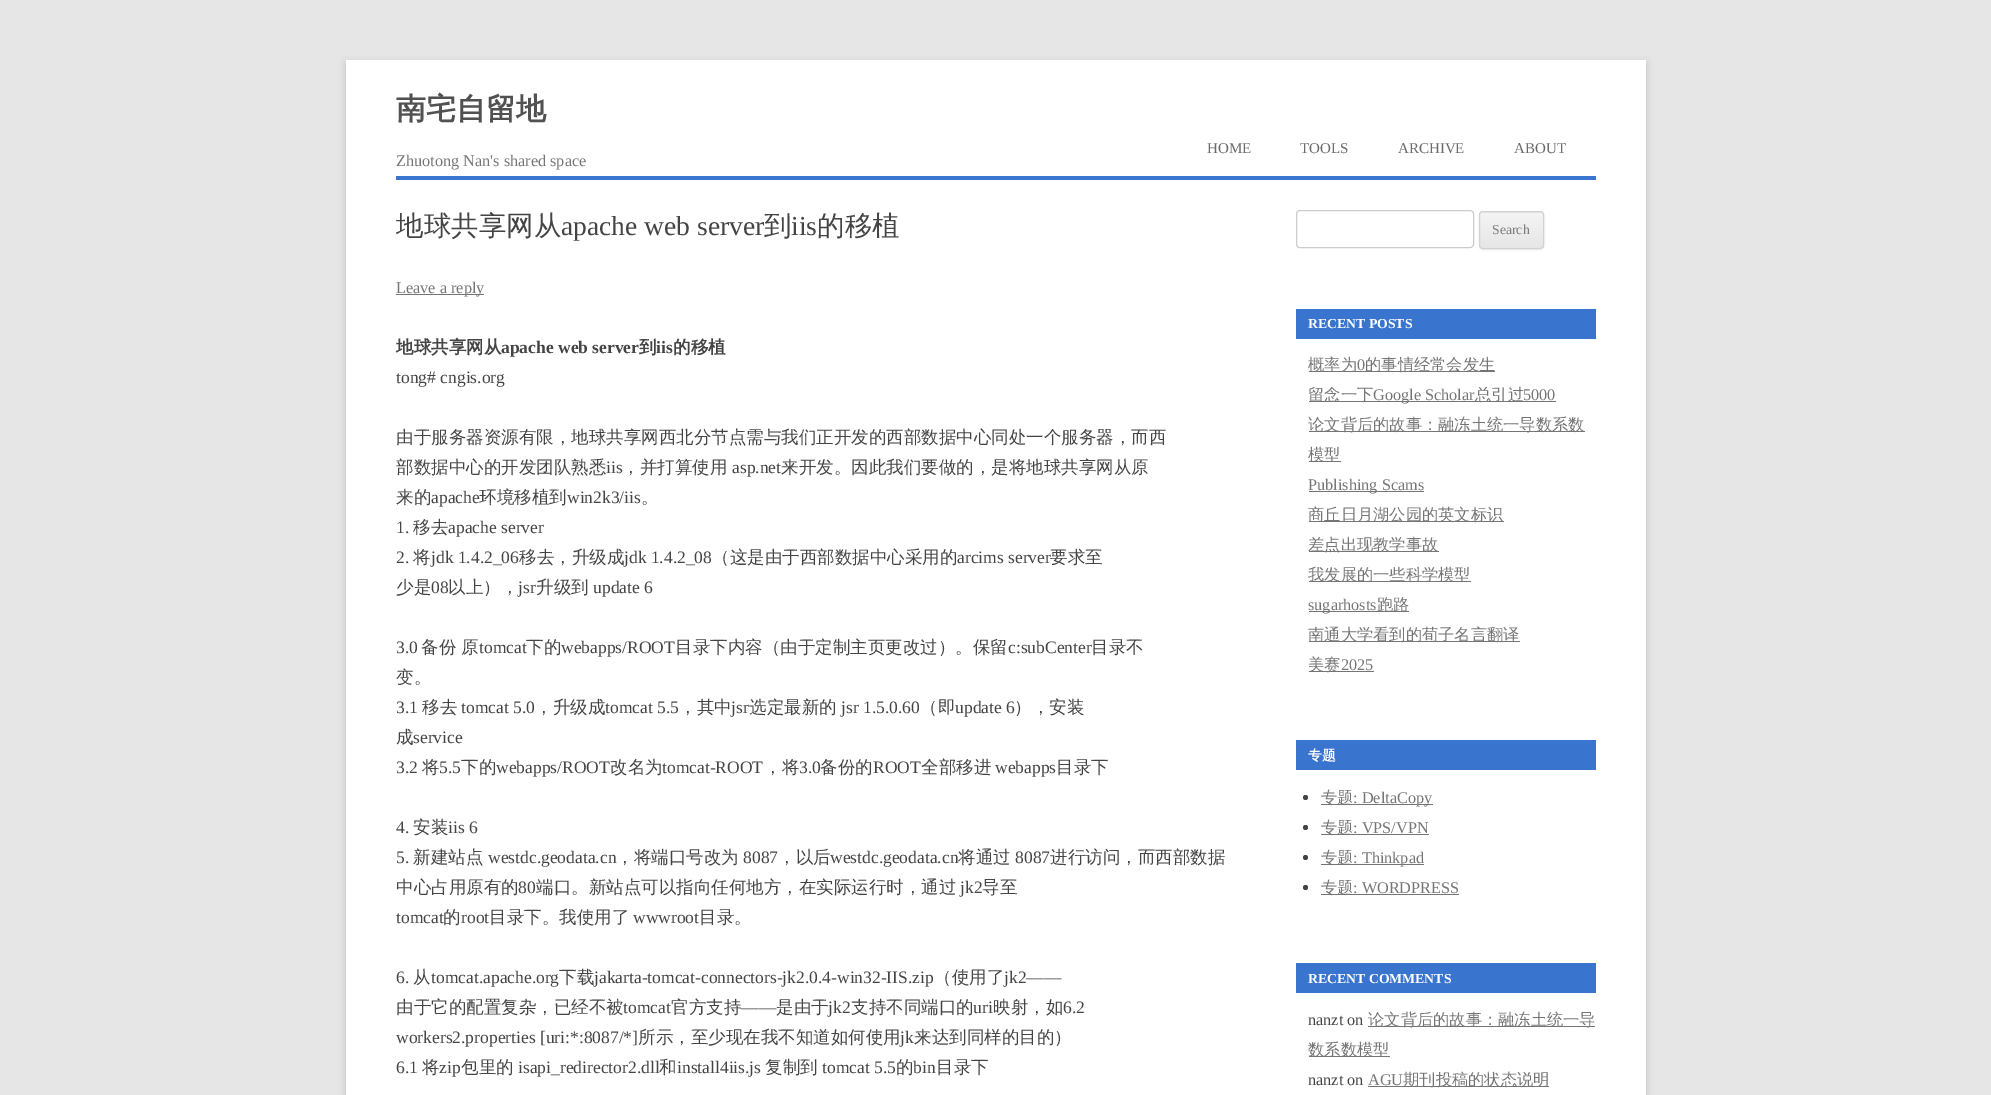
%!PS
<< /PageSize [1991 1095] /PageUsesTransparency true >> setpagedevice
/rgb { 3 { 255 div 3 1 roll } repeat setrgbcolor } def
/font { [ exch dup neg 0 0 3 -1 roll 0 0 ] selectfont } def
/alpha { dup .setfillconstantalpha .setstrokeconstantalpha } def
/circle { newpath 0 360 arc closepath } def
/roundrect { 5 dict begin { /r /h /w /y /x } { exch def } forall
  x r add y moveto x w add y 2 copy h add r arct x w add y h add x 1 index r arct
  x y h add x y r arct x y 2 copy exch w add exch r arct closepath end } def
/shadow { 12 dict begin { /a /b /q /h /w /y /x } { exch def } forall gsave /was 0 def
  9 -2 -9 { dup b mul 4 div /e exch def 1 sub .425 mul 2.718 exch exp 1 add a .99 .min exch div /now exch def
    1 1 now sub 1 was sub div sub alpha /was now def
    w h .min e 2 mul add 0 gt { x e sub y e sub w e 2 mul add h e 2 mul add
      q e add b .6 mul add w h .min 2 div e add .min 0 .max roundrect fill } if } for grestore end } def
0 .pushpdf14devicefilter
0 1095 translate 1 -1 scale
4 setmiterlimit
230 230 230 rgb
0 0 1991 1095 rectfill
100 100 100 rgb
346 63 1300 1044 0 4 0.3 shadow
[
  [346 60 1300 1035 255 255 255]
  [396 176 1200 4 57 117 206]
  [396 294 88 1 117 117 117]
] { aload pop rgb rectfill } forall
204 204 204 rgb
1296.5 210.5 177 37 3.5 roundrect stroke
64 64 64 rgb
1479 213 65 37 4 1 0.1 shadow
230 230 230 rgb
1479 211 65 38 4 roundrect fill
gsave
1479 211 65 38 4 roundrect clip newpath
gsave 1479 213 moveto 1544 213 lineto 1544 248 lineto 1479 248 lineto closepath clip newpath
<< /ShadingType 2 /ColorSpace /DeviceRGB /Coords [1511 213 1511 248] /Extend [true true] /Function << /FunctionType 2 /Domain [0 1] /C0 [0.957 0.957 0.957] /C1 [0.902 0.902 0.902] /N 1 >> >> shfill grestore
grestore
210 210 210 rgb
1479.5 211.5 64 37 3.5 roundrect stroke
[
  [1296 309 300 30 57 117 206]
  [1309 371 186 1 117 117 117]
  [1309 401 247 1 117 117 117]
  [1309 431 276 1 117 117 117]
  [1309 461 32 1 117 117 117]
  [1309 491 115 1 117 117 117]
  [1309 521 195 1 117 117 117]
  [1309 551 130 1 117 117 117]
  [1309 581 162 1 117 117 117]
  [1309 611 100 1 117 117 117]
  [1309 641 211 1 117 117 117]
  [1309 671 65 1 117 117 117]
  [1296 740 300 30 57 117 206]
] { aload pop rgb rectfill } forall
68 68 68 rgb
1305.5 797.5 2.5 circle fill
117 117 117 rgb
1321 804 112 1 rectfill
68 68 68 rgb
1305.5 827.5 2.5 circle fill
117 117 117 rgb
1321 834 108 1 rectfill
68 68 68 rgb
1305.5 857.5 2.5 circle fill
117 117 117 rgb
1321 864 103 1 rectfill
68 68 68 rgb
1305.5 887.5 2.5 circle fill
[
  [1321 894 138 1 117 117 117]
  [1296 963 300 30 57 117 206]
  [1368 1026 227 1 117 117 117]
  [1309 1056 81 1 117 117 117]
  [1368 1086 181 1 117 117 117]
] { aload pop rgb rectfill } forall
/WenQuanYiZenHei-Bold 30 font
81 81 81 rgb
396 119 moveto (南宅自留地) show
/LiberationSerif-Regular 16.25 font
117 117 117 rgb
396 166 moveto (Zhuotong Nan's shared space) show
/LiberationSerif-Regular 15 font
106 106 106 rgb
[
  [(HOME) 1207 153]
  [(TOOLS) 1300 153]
  [(ARCHIVE) 1398 153]
  [(ABOUT) 1514 153]
] { aload pop moveto show } forall
/WenQuanYiZenHei-Medium 27.5 font
68 68 68 rgb
396 235 moveto (地球共享网从) show
/LiberationSerif-Regular 27.5 font
561 235 moveto (apache web server) show
/WenQuanYiZenHei-Medium 27.5 font
764 235 moveto (到) show
/LiberationSerif-Regular 27.5 font
791 235 moveto (iis) show
/WenQuanYiZenHei-Medium 27.5 font
817 235 moveto (的移植) show
/LiberationSerif-Regular 16.25 font
117 117 117 rgb
396 293 moveto (Leave a reply) show
/WenQuanYiZenHei-Bold 17.5 font
68 68 68 rgb
396 353 moveto (地球共享网从) show
/LiberationSerif-Bold 17.5 font
501 353 moveto (apache web server) show
/WenQuanYiZenHei-Bold 17.5 font
639 353 moveto (到) show
/LiberationSerif-Bold 17.5 font
656 353 moveto (iis) show
/WenQuanYiZenHei-Bold 17.5 font
673 353 moveto (的移植) show
/LiberationSerif-Regular 17.5 font
396 383 moveto (tong# cngis.org) show
/WenQuanYiZenHei-Medium 17.5 font
396 443 moveto (由于服务器资源有限，地球共享网西北分节点需与我们正开发的西部数据中心同处一个服务器，而西) show
396 473 moveto (部数据中心的开发团队熟悉) show
/LiberationSerif-Regular 17.5 font
606 473 moveto (iis) show
/WenQuanYiZenHei-Medium 17.5 font
622 473 moveto (，并打算使用) show
/LiberationSerif-Regular 17.5 font
732 473 moveto (asp.net) show
/WenQuanYiZenHei-Medium 17.5 font
781 473 moveto (来开发。因此我们要做的，是将地球共享网从原) show
396 503 moveto (来的) show
/LiberationSerif-Regular 17.5 font
431 503 moveto (apache) show
/WenQuanYiZenHei-Medium 17.5 font
479 503 moveto (环境移植到) show
/LiberationSerif-Regular 17.5 font
567 503 moveto (win2k3/iis) show
/WenQuanYiZenHei-Medium 17.5 font
641 503 moveto (。) show
/LiberationSerif-Regular 17.5 font
396 533 moveto (1.) show
/WenQuanYiZenHei-Medium 17.5 font
413 533 moveto (移去) show
/LiberationSerif-Regular 17.5 font
448 533 moveto (apache server) show
396 563 moveto (2.) show
/WenQuanYiZenHei-Medium 17.5 font
413 563 moveto (将) show
/LiberationSerif-Regular 17.5 font
431 563 moveto (jdk 1.4.2_06) show
/WenQuanYiZenHei-Medium 17.5 font
519 563 moveto (移去，升级成) show
/LiberationSerif-Regular 17.5 font
624 563 moveto (jdk 1.4.2_08) show
/WenQuanYiZenHei-Medium 17.5 font
712 563 moveto (（这是由于西部数据中心采用的) show
/LiberationSerif-Regular 17.5 font
957 563 moveto (arcims server) show
/WenQuanYiZenHei-Medium 17.5 font
1050 563 moveto (要求至) show
396 593 moveto (少是) show
/LiberationSerif-Regular 17.5 font
431 593 moveto (08) show
/WenQuanYiZenHei-Medium 17.5 font
448 593 moveto (以上），) show
/LiberationSerif-Regular 17.5 font
518 593 moveto (jsr) show
/WenQuanYiZenHei-Medium 17.5 font
536 593 moveto (升级到) show
/LiberationSerif-Regular 17.5 font
593 593 moveto (update 6) show
396 653 moveto (3.0) show
/WenQuanYiZenHei-Medium 17.5 font
421 653 moveto (备份 原) show
/LiberationSerif-Regular 17.5 font
479 653 moveto (tomcat) show
/WenQuanYiZenHei-Medium 17.5 font
526 653 moveto (下的) show
/LiberationSerif-Regular 17.5 font
561 653 moveto (webapps/ROOT) show
/WenQuanYiZenHei-Medium 17.5 font
675 653 moveto (目录下内容（由于定制主页更改过）。保留) show
/LiberationSerif-Regular 17.5 font
1008 653 moveto (c:subCenter) show
/WenQuanYiZenHei-Medium 17.5 font
1091 653 moveto (目录不) show
396 683 moveto (变。) show
/LiberationSerif-Regular 17.5 font
396 713 moveto (3.1) show
/WenQuanYiZenHei-Medium 17.5 font
422 713 moveto (移去) show
/LiberationSerif-Regular 17.5 font
461 713 moveto (tomcat 5.0) show
/WenQuanYiZenHei-Medium 17.5 font
535 713 moveto (，升级成) show
/LiberationSerif-Regular 17.5 font
605 713 moveto (tomcat 5.5) show
/WenQuanYiZenHei-Medium 17.5 font
679 713 moveto (，其中) show
/LiberationSerif-Regular 17.5 font
731 713 moveto (jsr) show
/WenQuanYiZenHei-Medium 17.5 font
749 713 moveto (选定最新的) show
/LiberationSerif-Regular 17.5 font
841 713 moveto (jsr 1.5.0.60) show
/WenQuanYiZenHei-Medium 17.5 font
920 713 moveto (（即) show
/LiberationSerif-Regular 17.5 font
955 713 moveto (update 6) show
/WenQuanYiZenHei-Medium 17.5 font
1014 713 moveto (），安装) show
396 743 moveto (成) show
/LiberationSerif-Regular 17.5 font
413 743 moveto (service) show
396 773 moveto (3.2) show
/WenQuanYiZenHei-Medium 17.5 font
422 773 moveto (将) show
/LiberationSerif-Regular 17.5 font
439 773 moveto (5.5) show
/WenQuanYiZenHei-Medium 17.5 font
461 773 moveto (下的) show
/LiberationSerif-Regular 17.5 font
496 773 moveto (webapps/ROOT) show
/WenQuanYiZenHei-Medium 17.5 font
610 773 moveto (改名为) show
/LiberationSerif-Regular 17.5 font
662 773 moveto (tomcat-ROOT) show
/WenQuanYiZenHei-Medium 17.5 font
764 773 moveto (，将) show
/LiberationSerif-Regular 17.5 font
799 773 moveto (3.0) show
/WenQuanYiZenHei-Medium 17.5 font
820 773 moveto (备份的) show
/LiberationSerif-Regular 17.5 font
873 773 moveto (ROOT) show
/WenQuanYiZenHei-Medium 17.5 font
921 773 moveto (全部移进) show
/LiberationSerif-Regular 17.5 font
995 773 moveto (webapps) show
/WenQuanYiZenHei-Medium 17.5 font
1056 773 moveto (目录下) show
/LiberationSerif-Regular 17.5 font
396 833 moveto (4.) show
/WenQuanYiZenHei-Medium 17.5 font
413 833 moveto (安装) show
/LiberationSerif-Regular 17.5 font
448 833 moveto (iis 6) show
396 863 moveto (5.) show
/WenQuanYiZenHei-Medium 17.5 font
413 863 moveto (新建站点) show
/LiberationSerif-Regular 17.5 font
488 863 moveto (westdc.geodata.cn) show
/WenQuanYiZenHei-Medium 17.5 font
616 863 moveto (，将端口号改为) show
/LiberationSerif-Regular 17.5 font
743 863 moveto (8087) show
/WenQuanYiZenHei-Medium 17.5 font
778 863 moveto (，以后) show
/LiberationSerif-Regular 17.5 font
830 863 moveto (westdc.geodata.cn) show
/WenQuanYiZenHei-Medium 17.5 font
958 863 moveto (将通过) show
/LiberationSerif-Regular 17.5 font
1015 863 moveto (8087) show
/WenQuanYiZenHei-Medium 17.5 font
1050 863 moveto (进行访问，而西部数据) show
396 893 moveto (中心占用原有的) show
/LiberationSerif-Regular 17.5 font
518 893 moveto (80) show
/WenQuanYiZenHei-Medium 17.5 font
536 893 moveto (端口。新站点可以指向任何地方，在实际运行时，通过) show
/LiberationSerif-Regular 17.5 font
960 893 moveto (jk2) show
/WenQuanYiZenHei-Medium 17.5 font
982 893 moveto (导至) show
/LiberationSerif-Regular 17.5 font
396 923 moveto (tomcat) show
/WenQuanYiZenHei-Medium 17.5 font
443 923 moveto (的) show
/LiberationSerif-Regular 17.5 font
461 923 moveto (root) show
/WenQuanYiZenHei-Medium 17.5 font
489 923 moveto (目录下。我使用了) show
/LiberationSerif-Regular 17.5 font
633 923 moveto (wwwroot) show
/WenQuanYiZenHei-Medium 17.5 font
699 923 moveto (目录。) show
/LiberationSerif-Regular 17.5 font
396 983 moveto (6.) show
/WenQuanYiZenHei-Medium 17.5 font
413 983 moveto (从) show
/LiberationSerif-Regular 17.5 font
431 983 moveto (tomcat.apache.org) show
/WenQuanYiZenHei-Medium 17.5 font
559 983 moveto (下载) show
/LiberationSerif-Regular 17.5 font
594 983 moveto (jakarta-tomcat-connectors-jk2.0.4-win32-IIS.zip) show
/WenQuanYiZenHei-Medium 17.5 font
934 983 moveto (（使用了) show
/LiberationSerif-Regular 17.5 font
1004 983 moveto (jk2——) show
/WenQuanYiZenHei-Medium 17.5 font
396 1013 moveto (由于它的配置复杂，已经不被) show
/LiberationSerif-Regular 17.5 font
623 1013 moveto (tomcat) show
/WenQuanYiZenHei-Medium 17.5 font
671 1013 moveto (官方支持) show
/LiberationSerif-Regular 17.5 font
741 1013 moveto (——) show
/WenQuanYiZenHei-Medium 17.5 font
776 1013 moveto (是由于) show
/LiberationSerif-Regular 17.5 font
828 1013 moveto (jk2) show
/WenQuanYiZenHei-Medium 17.5 font
851 1013 moveto (支持不同端口的) show
/LiberationSerif-Regular 17.5 font
973 1013 moveto (uri) show
/WenQuanYiZenHei-Medium 17.5 font
993 1013 moveto (映射，如) show
/LiberationSerif-Regular 17.5 font
1063 1013 moveto (6.2) show
396 1043 moveto (workers2.properties [uri:*:8087/*]) show
/WenQuanYiZenHei-Medium 17.5 font
638 1043 moveto (所示，至少现在我不知道如何使用) show
/LiberationSerif-Regular 17.5 font
900 1043 moveto (jk) show
/WenQuanYiZenHei-Medium 17.5 font
914 1043 moveto (来达到同样的目的）) show
/LiberationSerif-Regular 17.5 font
396 1073 moveto (6.1) show
/WenQuanYiZenHei-Medium 17.5 font
422 1073 moveto (将) show
/LiberationSerif-Regular 17.5 font
439 1073 moveto (zip) show
/WenQuanYiZenHei-Medium 17.5 font
461 1073 moveto (包里的) show
/LiberationSerif-Regular 17.5 font
518 1073 moveto (isapi_redirector2.dll) show
/WenQuanYiZenHei-Medium 17.5 font
659 1073 moveto (和) show
/LiberationSerif-Regular 17.5 font
677 1073 moveto (install4iis.js) show
/WenQuanYiZenHei-Medium 17.5 font
765 1073 moveto (复制到) show
/LiberationSerif-Regular 17.5 font
822 1073 moveto (tomcat 5.5) show
/WenQuanYiZenHei-Medium 17.5 font
896 1073 moveto (的) show
/LiberationSerif-Regular 17.5 font
913 1073 moveto (bin) show
/WenQuanYiZenHei-Medium 17.5 font
936 1073 moveto (目录下) show
/LiberationSerif-Regular 13.75 font
124 124 124 rgb
1492 234 moveto (Search) show
/LiberationSerif-Bold 13.75 font
255 255 255 rgb
1308 328 moveto (RECENT POSTS) show
/WenQuanYiZenHei-Medium 16.25 font
117 117 117 rgb
1308 370 moveto (概率为) show
/LiberationSerif-Regular 16.25 font
1357 370 moveto (0) show
/WenQuanYiZenHei-Medium 16.25 font
1365 370 moveto (的事情经常会发生) show
1308 400 moveto (留念一下) show
/LiberationSerif-Regular 16.25 font
1373 400 moveto (Google Scholar) show
/WenQuanYiZenHei-Medium 16.25 font
1475 400 moveto (总引过) show
/LiberationSerif-Regular 16.25 font
1523 400 moveto (5000) show
/WenQuanYiZenHei-Medium 16.25 font
1308 430 moveto (论文背后的故事：融冻土统一导数系数) show
1308 460 moveto (模型) show
/LiberationSerif-Regular 16.25 font
1308 490 moveto (Publishing Scams) show
/WenQuanYiZenHei-Medium 16.25 font
[
  [(商丘日月湖公园的英文标识) 1308 520]
  [(差点出现教学事故) 1308 550]
  [(我发展的一些科学模型) 1308 580]
] { aload pop moveto show } forall
/LiberationSerif-Regular 16.25 font
1308 610 moveto (sugarhosts) show
/WenQuanYiZenHei-Medium 16.25 font
[
  [(跑路) 1377 610]
  [(南通大学看到的荀子名言翻译) 1308 640]
  [(美赛) 1308 670]
] { aload pop moveto show } forall
/LiberationSerif-Regular 16.25 font
1341 670 moveto (2025) show
/WenQuanYiZenHei-Bold 13.75 font
255 255 255 rgb
1308 760 moveto (专题) show
/WenQuanYiZenHei-Medium 16.25 font
117 117 117 rgb
1321 803 moveto (专题) show
/LiberationSerif-Regular 16.25 font
1353 803 moveto (: DeltaCopy) show
/WenQuanYiZenHei-Medium 16.25 font
1321 833 moveto (专题) show
/LiberationSerif-Regular 16.25 font
1353 833 moveto (: VPS/VPN) show
/WenQuanYiZenHei-Medium 16.25 font
1321 863 moveto (专题) show
/LiberationSerif-Regular 16.25 font
1353 863 moveto (: Thinkpad) show
/WenQuanYiZenHei-Medium 16.25 font
1321 893 moveto (专题) show
/LiberationSerif-Regular 16.25 font
1353 893 moveto (: WORDPRESS) show
/LiberationSerif-Bold 13.75 font
255 255 255 rgb
1308 983 moveto (RECENT COMMENTS) show
/LiberationSerif-Regular 16.25 font
68 68 68 rgb
1308 1025 moveto (nanzt on) show
/WenQuanYiZenHei-Medium 16.25 font
117 117 117 rgb
1368 1025 moveto (论文背后的故事：融冻土统一导) show
1308 1055 moveto (数系数模型) show
/LiberationSerif-Regular 16.25 font
68 68 68 rgb
1308 1085 moveto (nanzt on) show
117 117 117 rgb
1368 1085 moveto (AGU) show
/WenQuanYiZenHei-Medium 16.25 font
1403 1085 moveto (期刊投稿的状态说明) show
.poppdf14devicefilter showpage
